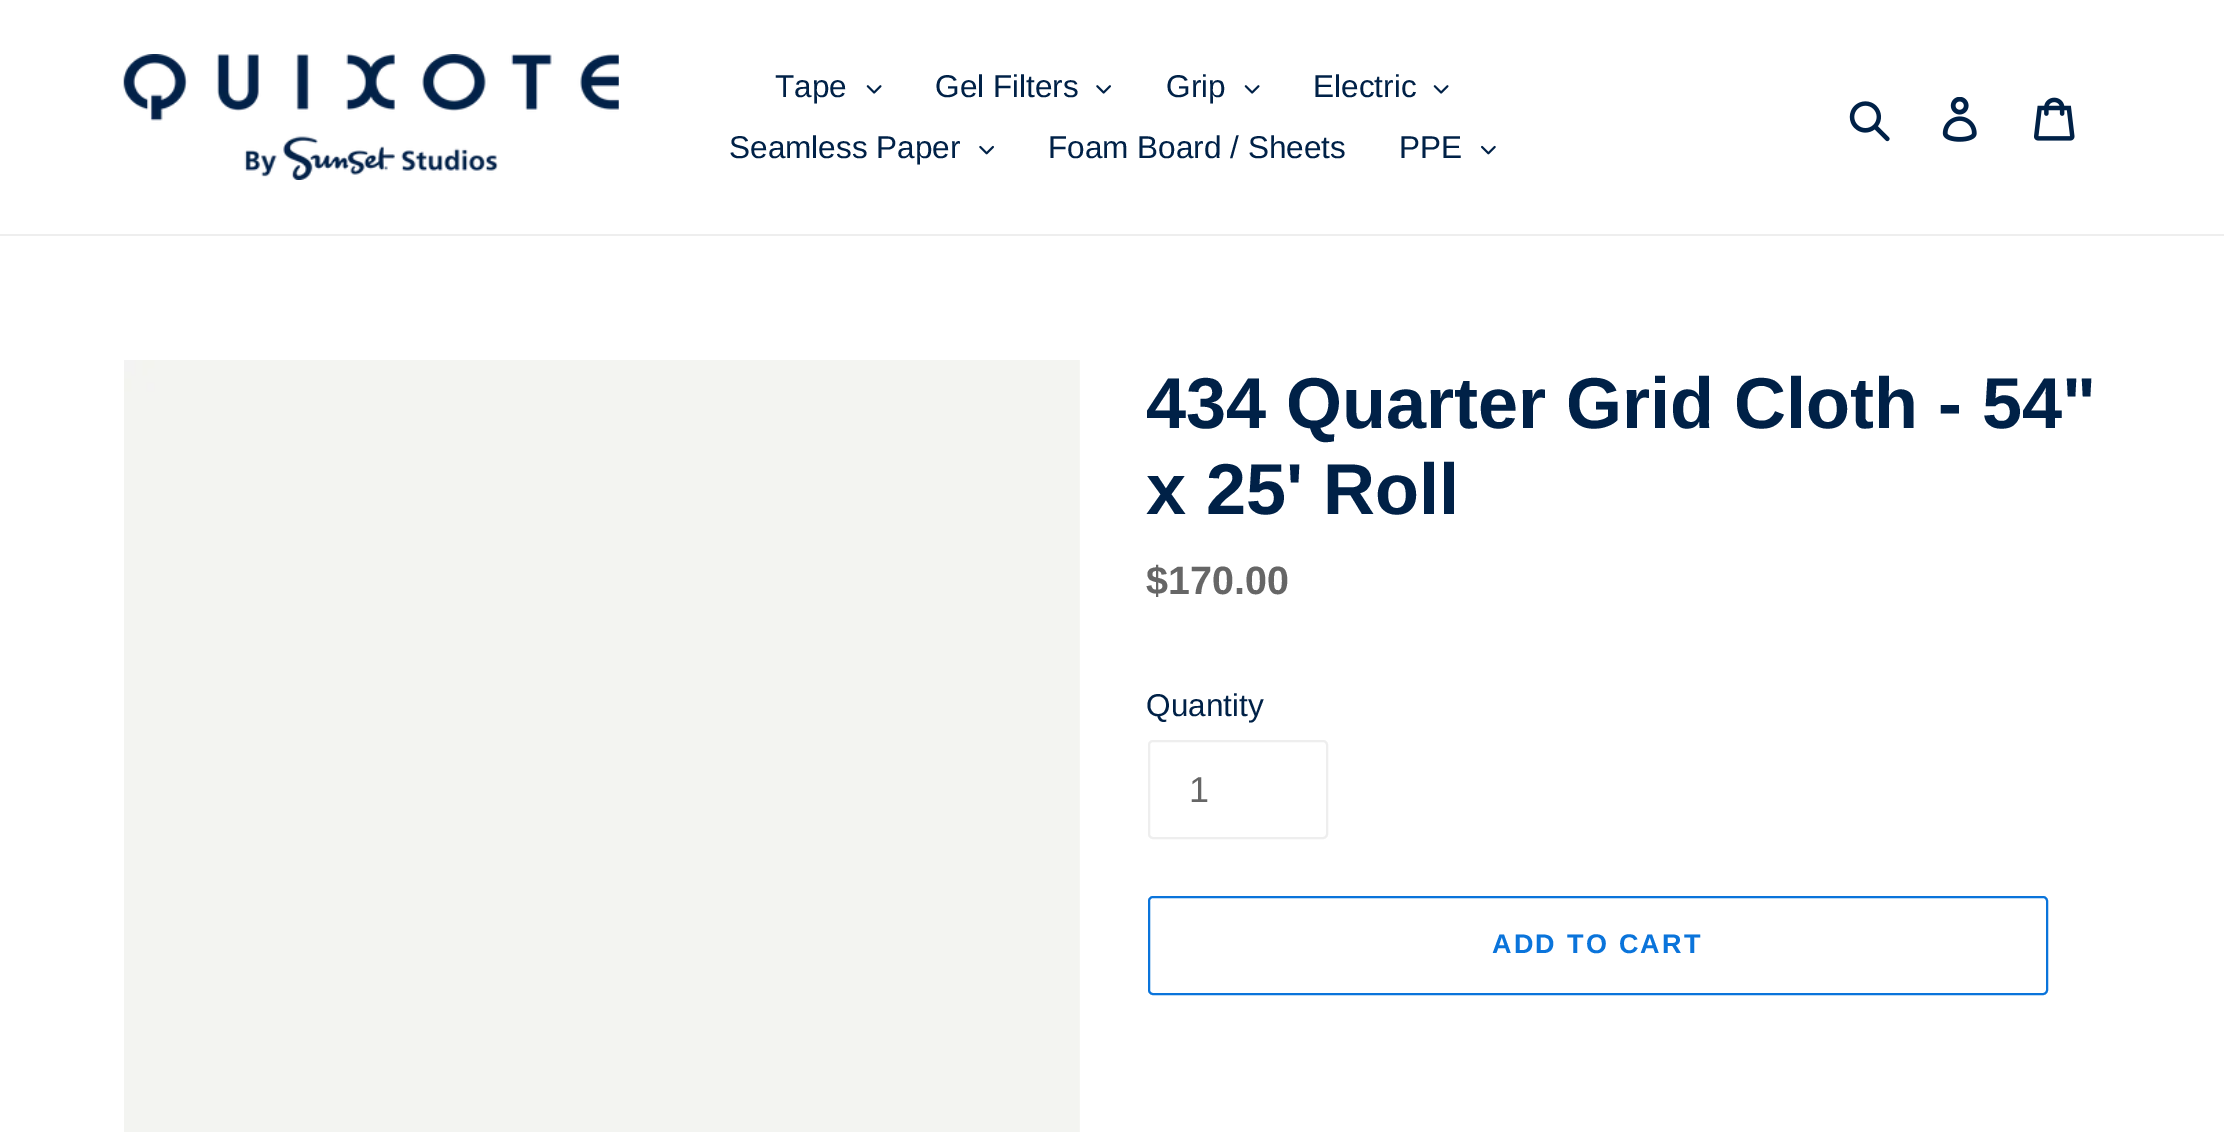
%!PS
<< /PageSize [2224 1132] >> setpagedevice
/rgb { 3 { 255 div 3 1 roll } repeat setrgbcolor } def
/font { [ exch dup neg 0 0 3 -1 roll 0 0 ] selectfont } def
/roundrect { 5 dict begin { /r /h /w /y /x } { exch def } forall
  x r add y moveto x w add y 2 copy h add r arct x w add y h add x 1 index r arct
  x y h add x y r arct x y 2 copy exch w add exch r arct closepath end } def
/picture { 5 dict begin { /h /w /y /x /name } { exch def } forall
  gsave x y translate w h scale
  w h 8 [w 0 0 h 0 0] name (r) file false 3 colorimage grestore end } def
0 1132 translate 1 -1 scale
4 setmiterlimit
255 255 255 rgb
0 0 2224 1132 rectfill
238 238 238 rgb
0 234 2224 2 rectfill
(img/1.rgb) 123 54 496 126 picture
(img/2.rgb) 866 85 16 9 picture
(img/3.rgb) 1096 85 15 9 picture
(img/2.rgb) 1244 85 16 9 picture
(img/2.rgb) 1433 85 16 9 picture
(img/4.rgb) 979 145 15 10 picture
(img/5.rgb) 1481 145 15 10 picture
(img/6.rgb) 1849 101 41 41 picture
(img/7.rgb) 1942 97 35 45 picture
(img/8.rgb) 2034 97 41 44 picture
(img/9.rgb) 124 360 956 772 picture
2 setlinewidth
1149 741 178 97 4 roundrect stroke
10 116 219 rgb
1149 897 898 97 4 roundrect stroke
/LiberationSans-Regular 31.5 font
0 33 71 rgb
[
  [(Tape) 775 97]
  [(Gel Filters) 935 97]
  [(Grip) 1166 97]
  [(Electric) 1313 97]
  [(Seamless Paper) 729 158]
  [(Foam Board / Sheets) 1048 158]
  [(PPE) 1399 158]
] { aload pop moveto show } forall
/LiberationSans-Bold 72 font
1146 428 moveto (434 Quarter Grid Cloth - 54") show
1146 514 moveto (x 25' Roll) show
/LiberationSans-Bold 39.5 font
102 102 102 rgb
1146 594 moveto ($170.00) show
/LiberationSans-Regular 31.5 font
0 33 71 rgb
1146 716 moveto (Quantity) show
/LiberationSans-Regular 36 font
102 102 102 rgb
1189 802 moveto (1) show
/LiberationSans-Bold 27 font
10 116 219 rgb
1492 953 moveto 2.25 0 (ADD TO CART) ashow
showpage
